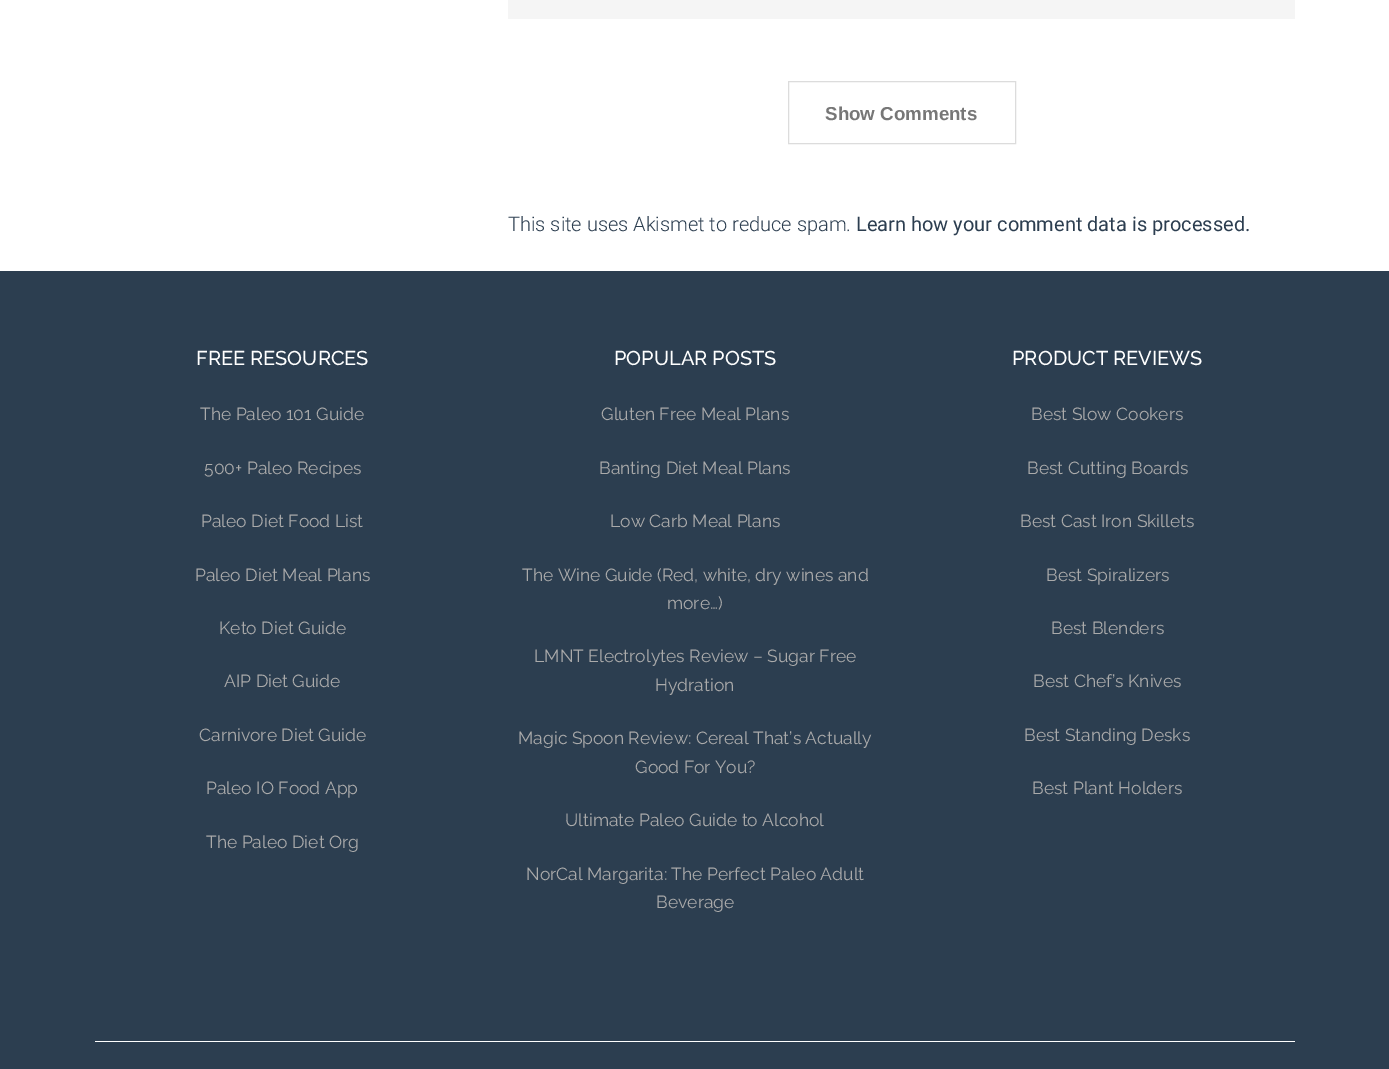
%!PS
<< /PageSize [1389 1069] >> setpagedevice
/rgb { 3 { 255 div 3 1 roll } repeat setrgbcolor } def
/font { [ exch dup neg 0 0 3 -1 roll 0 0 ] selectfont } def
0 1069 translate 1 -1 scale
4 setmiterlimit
255 255 255 rgb
0 0 1389 1069 rectfill
245 245 245 rgb
508 0 787 19 rectfill
220 220 220 rgb
788.5 81.5 227 62 rectstroke
44 62 80 rgb
0 271 1389 798 rectfill
255 255 255 rgb
95 1041 1200 1 rectfill
/LiberationSans-Bold 18.75 font
119 119 119 rgb
825 120 moveto (Show Comments) show
/Roboto-Light 20 font
44 62 80 rgb
508 231 moveto (This site uses Akismet to reduce spam.) show
/Roboto-Regular 20 font
856 231 moveto (Learn how your comment data is processed.) show
/Raleway-Medium 20 font
255 255 255 rgb
196 365 moveto (FREE RESOURCES) show
/Raleway-Regular 17.5 font
170 170 170 rgb
[
  [(The Paleo 101 Guide) 200 420]
  [(500+ Paleo Recipes) 204 474]
  [(Paleo Diet Food List) 201 527]
  [(Paleo Diet Meal Plans) 195 581]
  [(Keto Diet Guide) 219 634]
  [(AIP Diet Guide) 224 687]
  [(Carnivore Diet Guide) 199 741]
  [(Paleo IO Food App) 206 794]
  [(The Paleo Diet Org) 206 848]
] { aload pop moveto show } forall
/Raleway-Medium 20 font
255 255 255 rgb
614 365 moveto (POPULAR POSTS) show
/Raleway-Regular 17.5 font
170 170 170 rgb
[
  [(Gluten Free Meal Plans) 601 420]
  [(Banting Diet Meal Plans) 599 474]
  [(Low Carb Meal Plans) 610 527]
  [(The Wine Guide \(Red, white, dry wines and) 522 581]
  [(more…\)) 667 609]
  [(LMNT Electrolytes Review – Sugar Free) 534 662]
  [(Hydration) 655 691]
  [(Magic Spoon Review: Cereal That’s Actually) 518 744]
  [(Good For You?) 635 773]
  [(Ultimate Paleo Guide to Alcohol) 565 826]
  [(NorCal Margarita: The Perfect Paleo Adult) 526 880]
  [(Beverage) 656 908]
] { aload pop moveto show } forall
/Raleway-Medium 20 font
255 255 255 rgb
1012 365 moveto (PRODUCT REVIEWS) show
/Raleway-Regular 17.5 font
170 170 170 rgb
[
  [(Best Slow Cookers) 1031 420]
  [(Best Cutting Boards) 1027 474]
  [(Best Cast Iron Skillets) 1020 527]
  [(Best Spiralizers) 1046 581]
  [(Best Blenders) 1051 634]
  [(Best Chef’s Knives) 1033 687]
  [(Best Standing Desks) 1024 741]
  [(Best Plant Holders) 1032 794]
] { aload pop moveto show } forall
showpage
